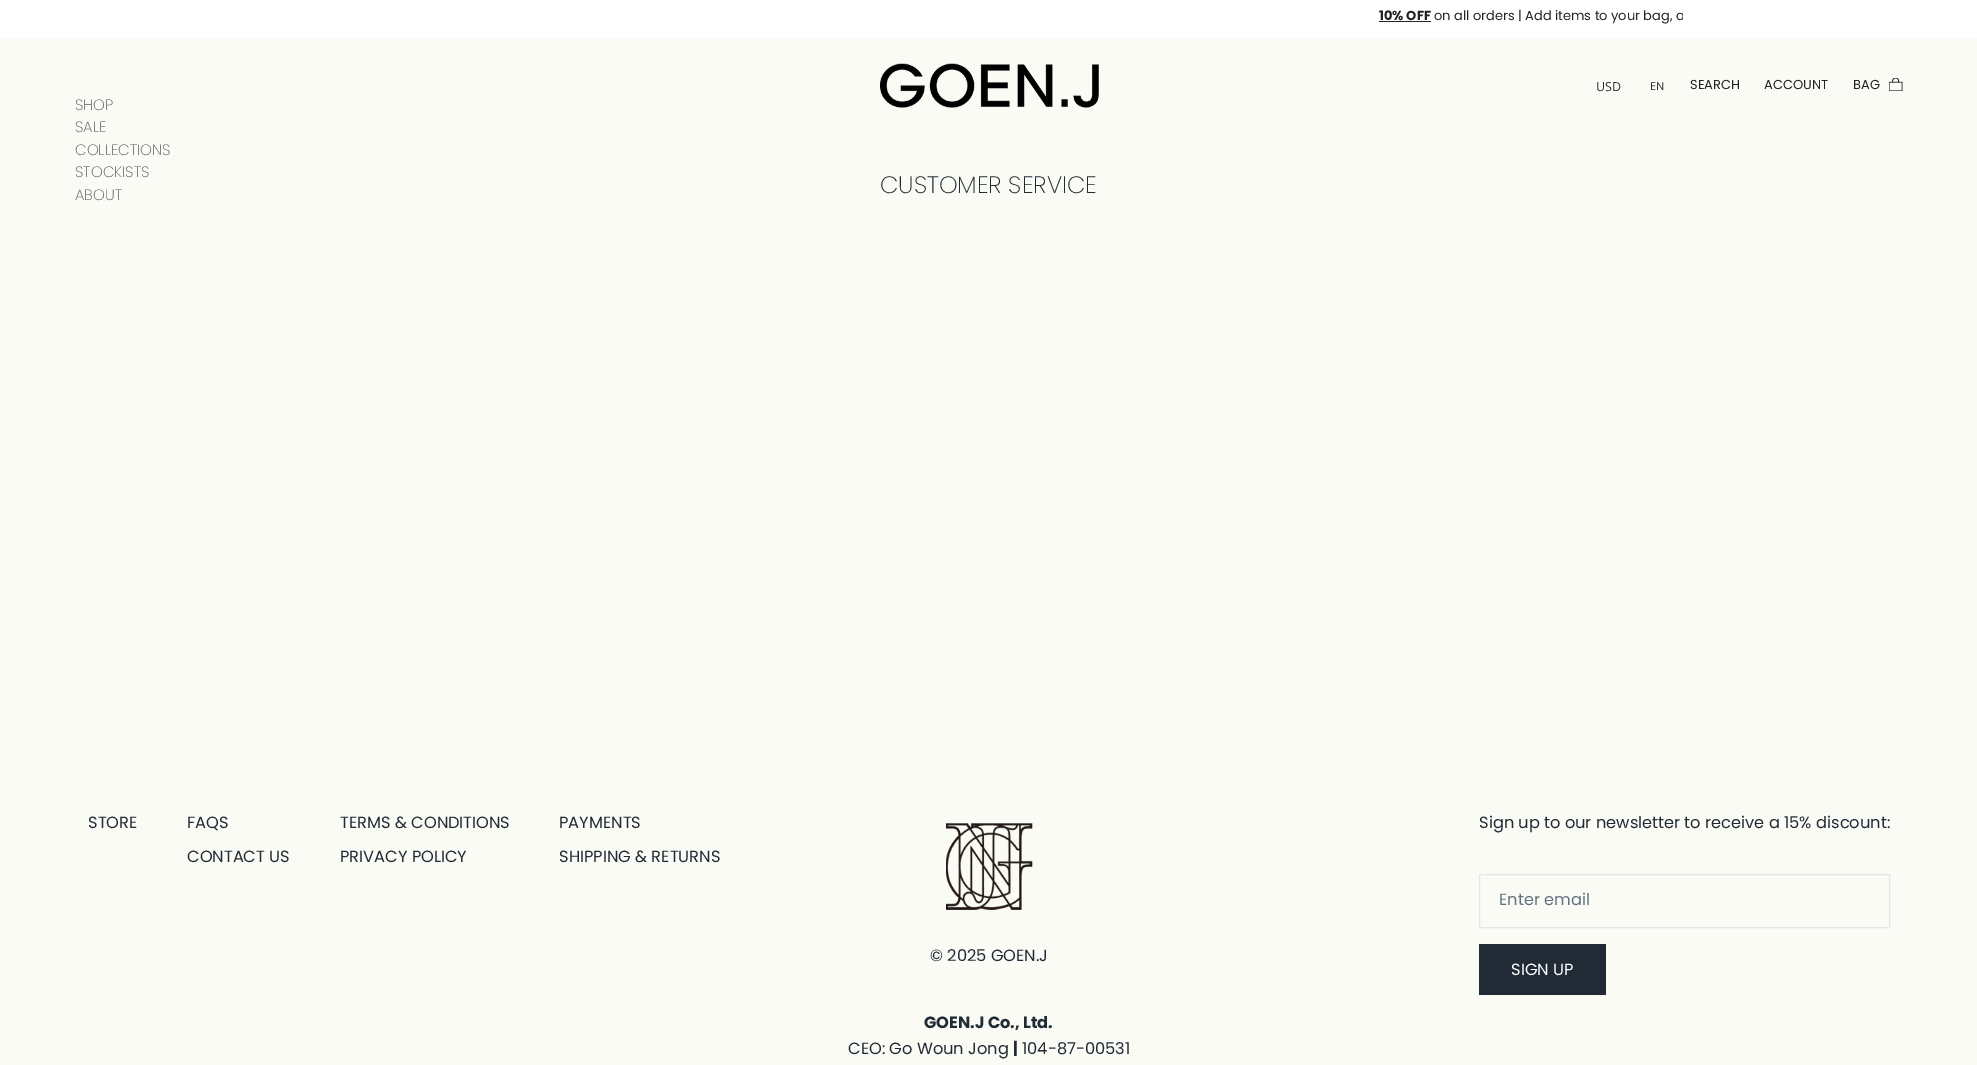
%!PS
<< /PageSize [1977 1065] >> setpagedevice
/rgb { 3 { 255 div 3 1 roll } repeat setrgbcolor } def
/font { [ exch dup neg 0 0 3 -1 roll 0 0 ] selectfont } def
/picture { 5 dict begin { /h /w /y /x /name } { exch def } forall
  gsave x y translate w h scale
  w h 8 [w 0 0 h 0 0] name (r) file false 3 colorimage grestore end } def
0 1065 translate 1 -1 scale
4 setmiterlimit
251 251 245 rgb
0 0 1977 1065 rectfill
255 255 255 rgb
0 0 1977 39 rectfill
35 35 35 rgb
1379 21 52 1 rectfill
(img/1.rgb) 880 63 219 45 picture
(img/2.rgb) 1889 78 14 13 picture
228 231 228 rgb
1479.5 874.5 410 53 rectstroke
33 43 54 rgb
1479 944 127 51 rectfill
(img/3.rgb) 946 823 87 87 picture
/Poppins-Bold 13 font
35 35 35 rgb
1379 20 moveto (10% OFF) show
gsave
295 8 1388 18 rectclip
/Poppins-Regular 13 font
1434 20 moveto (on all orders | Add items to your bag, a) show
grestore
/OpenSans-Regular 12.5 font
39 46 49 rgb
1596 91 moveto (USD) show
/OpenSans-Regular 11 font
1650 90 moveto (EN) show
/Poppins-Regular 13 font
35 35 35 rgb
[
  [(SEARCH) 1690 89]
  [(ACCOUNT) 1764 89]
  [(BAG) 1853 89]
] { aload pop moveto show } forall
/Poppins-Light 15 font
85 85 85 rgb
[
  [(SHOP) 75 110]
  [(SALE) 75 132]
  [(COLLECTIONS) 75 155]
  [(STOCKISTS) 75 177]
  [(ABOUT) 75 200]
] { aload pop moveto show } forall
/Poppins-Light 23.75 font
33 43 54 rgb
880 193 moveto (CUSTOMER SERVICE) show
/Poppins-Regular 16.25 font
[
  [(STORE) 88 828]
  [(FAQS) 187 828]
  [(CONTACT US) 187 862]
  [(TERMS & CONDITIONS) 340 828]
  [(PRIVACY POLICY) 340 862]
  [(PAYMENTS) 559 828]
  [(SHIPPING & RETURNS) 559 862]
  [(Sign up to our newsletter to receive a 15% discount:) 1479 828]
] { aload pop moveto show } forall
99 115 129 rgb
1499 905 moveto (Enter email) show
255 255 255 rgb
1511 975 moveto (SIGN UP) show
33 43 54 rgb
930 961 moveto (© 2025 GOEN.J) show
/Poppins-Bold 16.25 font
924 1028 moveto (GOEN.J Co., Ltd.) show
/Poppins-Regular 16.25 font
848 1054 moveto (CEO: Go Woun Jong) show
/Poppins-Bold 16.25 font
1013 1054 moveto (|) show
/Poppins-Regular 16.25 font
1022 1054 moveto (104-87-00531) show
showpage
